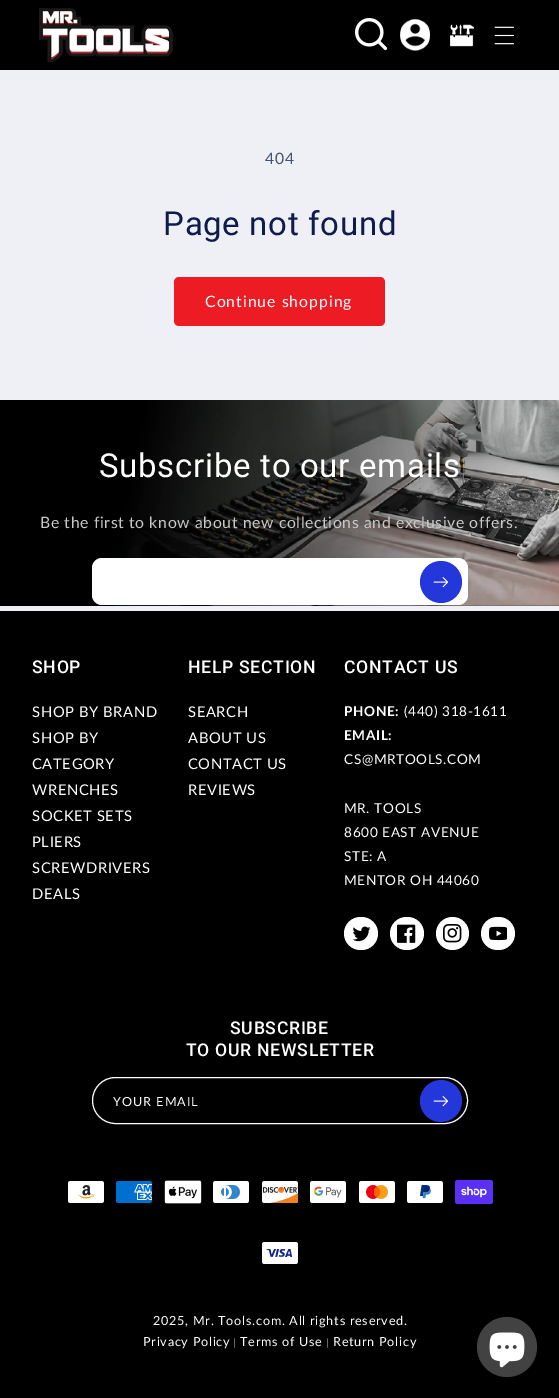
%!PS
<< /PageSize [559 1398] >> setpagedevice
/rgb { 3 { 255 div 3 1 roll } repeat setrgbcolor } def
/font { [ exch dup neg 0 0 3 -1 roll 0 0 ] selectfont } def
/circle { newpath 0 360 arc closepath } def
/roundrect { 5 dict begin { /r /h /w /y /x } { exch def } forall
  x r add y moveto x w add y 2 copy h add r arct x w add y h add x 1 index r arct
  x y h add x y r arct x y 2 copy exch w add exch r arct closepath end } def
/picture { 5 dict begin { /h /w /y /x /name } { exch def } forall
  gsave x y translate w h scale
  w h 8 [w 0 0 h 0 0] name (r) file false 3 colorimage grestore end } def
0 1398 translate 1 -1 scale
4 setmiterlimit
239 240 245 rgb
0 0 559 1398 rectfill
0 0 0 rgb
0 0 559 70 rectfill
(img/1.rgb) 39 8 134 54 picture
(img/2.rgb) 355 18 33 33 picture
(img/3.rgb) 400 19 30 32 picture
(img/4.rgb) 450 24 24 23 picture
(img/5.rgb) 494 26 20 19 picture
237 28 36 rgb
174 277 211 49 5 roundrect fill
0 0 0 rgb
0 400 559 206 rectfill
(img/6.rgb) 113 400 446 206 picture
255 255 255 rgb
92 558 376 47 10 roundrect fill
35 55 218 rgb
441 582 21 circle fill
(img/7.rgb) 433 577 15 11 picture
0 0 0 rgb
0 611 559 787 rectfill
255 255 255 rgb
344 917 34 33 16.5 roundrect fill
(img/8.rgb) 352 926 19 16 picture
390 917 34 33 16.5 roundrect fill
(img/9.rgb) 397 924 19 19 picture
452.5 933.5 16.5 circle fill
(img/10.rgb) 443 924 19 19 picture
481 917 34 33 16.5 roundrect fill
(img/11.rgb) 489 926 18 15 picture
92.5 1077.5 375 46 23 roundrect stroke
35 55 218 rgb
441 1101 21 circle fill
(img/7.rgb) 433 1096 15 11 picture
(img/12.rgb) 68 1181 36 22 picture
(img/13.rgb) 116 1181 36 22 picture
(img/14.rgb) 164 1180 38 24 picture
(img/15.rgb) 213 1181 36 22 picture
(img/16.rgb) 262 1181 37 22 picture
(img/17.rgb) 310 1181 36 22 picture
(img/18.rgb) 359 1181 36 22 picture
(img/19.rgb) 407 1181 36 22 picture
(img/20.rgb) 455 1180 38 24 picture
(img/21.rgb) 262 1242 36 22 picture
66 66 66 rgb
507 1347 30 circle fill
(img/22.rgb) 489 1332 36 36 picture
/Lato-Regular 15.75 font
70 80 119 rgb
265 164 moveto 0.63 0 (404) ashow
/Roboto-Regular 33 font
14 27 77 rgb
163 235 moveto 0.7 0 (Page not found) ashow
/Lato-Regular 15.75 font
255 255 255 rgb
205 307 moveto 1 0 (Continue shopping) ashow
/Roboto-Regular 33 font
99 477 moveto 0.7 0 (Subscribe to our emails) ashow
/Lato-Regular 15.75 font
200 200 200 rgb
40 528 moveto 0.63 0 (Be the first to know about new collections and exclusive offers.) ashow
/Roboto-Medium 17.6 font
255 255 255 rgb
32 673 moveto 0.7 0 (SHOP) ashow
/Lato-Regular 14.75 font
32 717 moveto 0.63 0 (SHOP BY BRAND) ashow
32 743 moveto 0.63 0 (SHOP BY) ashow
32 769 moveto 0.63 0 (CATEGORY) ashow
32 795 moveto 0.63 0 (WRENCHES) ashow
32 821 moveto 0.63 0 (SOCKET SETS) ashow
32 847 moveto 0.63 0 (PLIERS) ashow
32 873 moveto 0.63 0 (SCREWDRIVERS) ashow
32 899 moveto 0.63 0 (DEALS) ashow
/Roboto-Medium 17.6 font
188 673 moveto 0.7 0 (HELP SECTION) ashow
/Lato-Regular 14.75 font
188 717 moveto 0.63 0 (SEARCH) ashow
188 743 moveto 0.63 0 (ABOUT US) ashow
188 769 moveto 0.63 0 (CONTACT US) ashow
188 795 moveto 0.63 0 (REVIEWS) ashow
/Roboto-Medium 17.6 font
344 673 moveto 0.7 0 (CONTACT US) ashow
/Lato-Bold 13.6 font
344 716 moveto 0.63 0 (PHONE:) ashow
/Lato-Regular 13.6 font
404 716 moveto 0.63 0 (\(440\) 318-1611) ashow
/Lato-Bold 13.6 font
344 740 moveto 0.63 0 (EMAIL:) ashow
/Lato-Regular 13.6 font
344 764 moveto 0.63 0 (CS@MRTOOLS.COM) ashow
344 813 moveto 0.63 0 (MR. TOOLS) ashow
344 837 moveto 0.63 0 (8600 EAST AVENUE) ashow
344 861 moveto 0.63 0 (STE: A) ashow
344 885 moveto 0.63 0 (MENTOR OH 44060) ashow
/Roboto-Medium 17.6 font
230 1034 moveto 0.7 0 (SUBSCRIBE) ashow
186 1056 moveto 0.7 0 (TO OUR NEWSLETTER) ashow
/Lato-Regular 12.6 font
113 1106 moveto 1 0 (YOUR EMAIL) ashow
153 1325 moveto 0.75 0 (2025, Mr. Tools.com. All rights reserved.) ashow
143 1346 moveto 0.75 0 (Privacy Policy) ashow
/Lato-Regular 10 font
191 191 191 rgb
233 1346 moveto 0.75 0 (|) ashow
/Lato-Regular 12.6 font
255 255 255 rgb
240 1346 moveto 0.75 0 (Terms of Use) ashow
/Lato-Regular 10 font
191 191 191 rgb
326 1346 moveto 0.75 0 (|) ashow
/Lato-Regular 12.6 font
255 255 255 rgb
333 1346 moveto 0.75 0 (Return Policy) ashow
showpage
